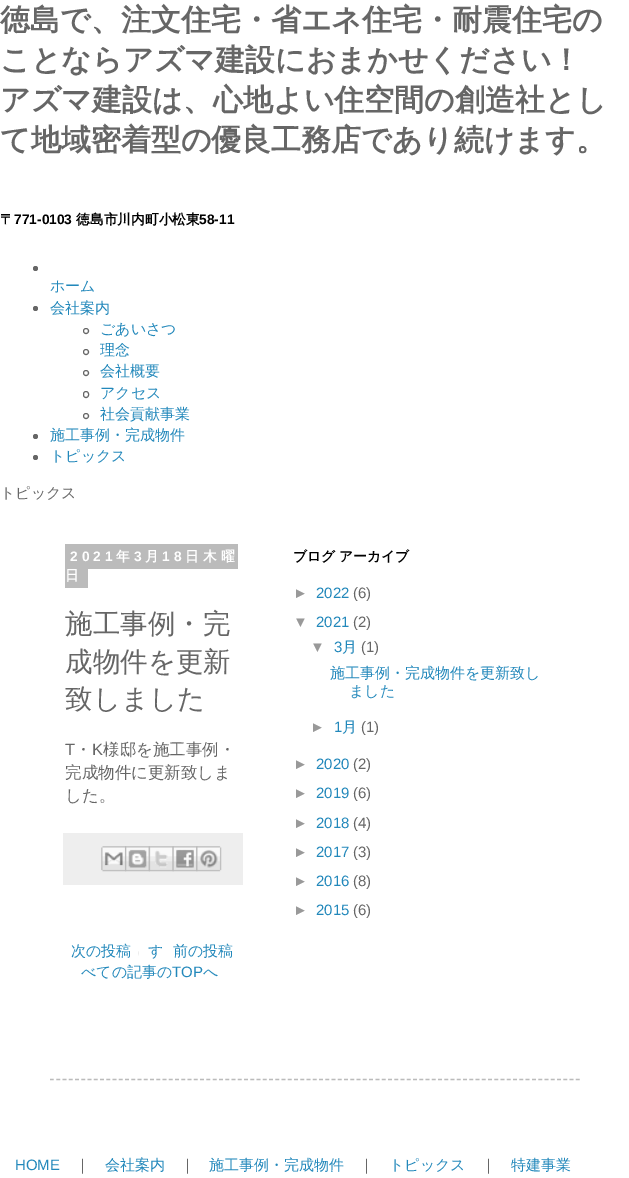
%!PS
<< /PageSize [629 1178] >> setpagedevice
/rgb { 3 { 255 div 3 1 roll } repeat setrgbcolor } def
/font { [ exch dup neg 0 0 3 -1 roll 0 0 ] selectfont } def
/circle { newpath 0 360 arc closepath } def
/roundrect { 5 dict begin { /r /h /w /y /x } { exch def } forall
  x r add y moveto x w add y 2 copy h add r arct x w add y h add x 1 index r arct
  x y h add x y r arct x y 2 copy exch w add exch r arct closepath end } def
/picture { 5 dict begin { /h /w /y /x /name } { exch def } forall
  gsave x y translate w h scale
  w h 8 [w 0 0 h 0 0] name (r) file false 3 colorimage grestore end } def
0 1178 translate 1 -1 scale
4 setmiterlimit
255 255 255 rgb
0 0 629 1178 rectfill
102 102 102 rgb
35.5 268.5 2.5 circle fill
35.5 308.5 2.5 circle fill
86 331 2.5 circle stroke
86 352 2.5 circle stroke
86 373 2.5 circle stroke
83.5 391.5 5 6 2.5 roundrect stroke
86 416 2.5 circle stroke
35.5 436.5 2.5 circle fill
35.5 457.5 2.5 circle fill
[
  [65 544 173 25 187 187 187]
  [65 569 23 19 187 187 187]
  [63 833 180 52 238 238 238]
] { aload pop rgb rectfill } forall
(img/1.rgb) 101 846 26 26 picture
(img/2.rgb) 125 846 25 26 picture
(img/3.rgb) 148 846 26 26 picture
(img/4.rgb) 172 846 26 26 picture
(img/5.rgb) 196 846 26 26 picture
(img/6.rgb) 138 951 1 5 picture
187 187 187 rgb
1.2 setlinewidth
[3.75 2.51] 0 setdash
50 1079.5 moveto 580 1079.5 lineto stroke
/WenQuanYiZenHei-Bold 30 font
102 102 102 rgb
[
  [(徳島で、注文住宅・省エネ住宅・耐震住宅の) 0 30]
  [(ことならアズマ建設におまかせください！) 0 70]
  [(アズマ建設は、心地よい住空間の創造社とし) 0 110]
  [(て地域密着型の優良工務店であり続けます。) 0 150]
] { aload pop moveto show } forall
/WenQuanYiZenHei-Bold 13.75 font
0 0 0 rgb
0 224 moveto (〒) show
/LiberationSans-Bold 13.75 font
14 224 moveto (771-0103) show
/WenQuanYiZenHei-Bold 13.75 font
76 224 moveto (徳島市川内町小松東) show
/LiberationSans-Bold 13.75 font
199 224 moveto (58-11) show
/WenQuanYiZenHei-Medium 15 font
34 136 187 rgb
[
  [(ホーム) 50 291]
  [(会社案内) 50 313]
  [(ごあいさつ) 100 334]
  [(理念) 100 355]
  [(会社概要) 100 376]
  [(アクセス) 100 398]
  [(社会貢献事業) 100 419]
  [(施工事例・完成物件) 50 440]
  [(トピックス) 50 461]
] { aload pop moveto show } forall
102 102 102 rgb
0 498 moveto (トピックス) show
/LiberationSans-Bold 13.75 font
255 255 255 rgb
70 561 moveto 4 0 (2021) ashow
/WenQuanYiZenHei-Bold 13.75 font
116 561 moveto 4 0 (年) ashow
/LiberationSans-Bold 13.75 font
134 561 moveto 4 0 (3) ashow
/WenQuanYiZenHei-Bold 13.75 font
145 561 moveto 4 0 (月) ashow
/LiberationSans-Bold 13.75 font
162 561 moveto 4 0 (18) ashow
/WenQuanYiZenHei-Bold 13.75 font
185 561 moveto 4 0 (日木曜) ashow
65 580 moveto 4 0 (日) ashow
/WenQuanYiZenHei-Medium 27.5 font
102 102 102 rgb
[
  [(施工事例・完) 65 633]
  [(成物件を更新) 65 671]
  [(致しました) 65 708]
] { aload pop moveto show } forall
/LiberationSans-Regular 16.5 font
65 755 moveto (T) show
/WenQuanYiZenHei-Medium 16.5 font
75 755 moveto (・) show
/LiberationSans-Regular 16.5 font
92 755 moveto (K) show
/WenQuanYiZenHei-Medium 16.5 font
[
  [(様邸を施工事例・) 103 755]
  [(完成物件に更新致しま) 65 778]
  [(した。) 65 801]
] { aload pop moveto show } forall
/WenQuanYiZenHei-Medium 15 font
34 136 187 rgb
71 956 moveto (次の投稿) show
173 956 moveto (前の投稿) show
255 255 255 rgb
84 958 122 1 rectfill
34 136 187 rgb
148 956 moveto (す) show
81 977 moveto (べての記事の) show
/LiberationSans-Regular 15 font
172 977 moveto (TOP) show
/WenQuanYiZenHei-Medium 15 font
203 977 moveto (へ) show
/WenQuanYiZenHei-Bold 13.75 font
0 0 0 rgb
293 561 moveto (ブログ アーカイブ) show
/LiberationSans-Regular 15 font
153 153 153 rgb
293 598 moveto (►) show
34 136 187 rgb
316 598 moveto (2022) show
102 102 102 rgb
353 598 moveto (\(6\)) show
153 153 153 rgb
293 627 moveto (▼) show
34 136 187 rgb
316 627 moveto (2021) show
102 102 102 rgb
353 627 moveto (\(2\)) show
153 153 153 rgb
310 652 moveto (▼) show
34 136 187 rgb
334 652 moveto (3) show
/WenQuanYiZenHei-Medium 15 font
342 652 moveto (月) show
/LiberationSans-Regular 15 font
102 102 102 rgb
361 652 moveto (\(1\)) show
/WenQuanYiZenHei-Medium 15 font
34 136 187 rgb
330 678 moveto (施工事例・完成物件を更新致し) show
349 696 moveto (ました) show
/LiberationSans-Regular 15 font
153 153 153 rgb
310 732 moveto (►) show
34 136 187 rgb
334 732 moveto (1) show
/WenQuanYiZenHei-Medium 15 font
342 732 moveto (月) show
/LiberationSans-Regular 15 font
102 102 102 rgb
361 732 moveto (\(1\)) show
153 153 153 rgb
293 769 moveto (►) show
34 136 187 rgb
316 769 moveto (2020) show
102 102 102 rgb
353 769 moveto (\(2\)) show
153 153 153 rgb
293 798 moveto (►) show
34 136 187 rgb
316 798 moveto (2019) show
102 102 102 rgb
353 798 moveto (\(6\)) show
153 153 153 rgb
293 828 moveto (►) show
34 136 187 rgb
316 828 moveto (2018) show
102 102 102 rgb
353 828 moveto (\(4\)) show
153 153 153 rgb
293 857 moveto (►) show
34 136 187 rgb
316 857 moveto (2017) show
102 102 102 rgb
353 857 moveto (\(3\)) show
153 153 153 rgb
293 886 moveto (►) show
34 136 187 rgb
316 886 moveto (2016) show
102 102 102 rgb
353 886 moveto (\(8\)) show
153 153 153 rgb
293 915 moveto (►) show
34 136 187 rgb
316 915 moveto (2015) show
102 102 102 rgb
353 915 moveto (\(6\)) show
34 136 187 rgb
15 1170 moveto (HOME) show
/WenQuanYiZenHei-Medium 15 font
102 102 102 rgb
75 1170 moveto (｜) show
34 136 187 rgb
105 1170 moveto (会社案内) show
102 102 102 rgb
180 1170 moveto (｜) show
34 136 187 rgb
209 1170 moveto (施工事例・完成物件) show
102 102 102 rgb
359 1170 moveto (｜) show
34 136 187 rgb
389 1170 moveto (トピックス) show
102 102 102 rgb
481 1170 moveto (｜) show
34 136 187 rgb
511 1170 moveto (特建事業) show
showpage
